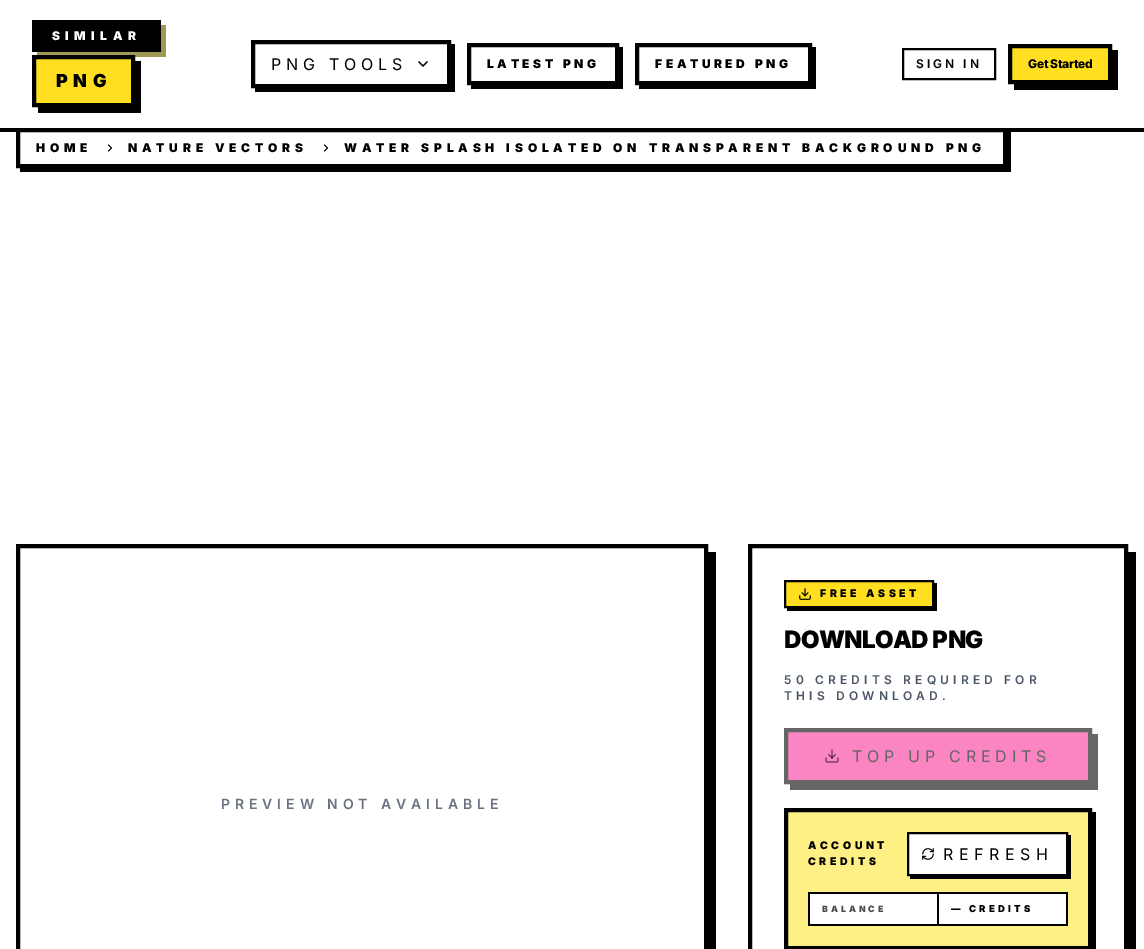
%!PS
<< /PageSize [1144 949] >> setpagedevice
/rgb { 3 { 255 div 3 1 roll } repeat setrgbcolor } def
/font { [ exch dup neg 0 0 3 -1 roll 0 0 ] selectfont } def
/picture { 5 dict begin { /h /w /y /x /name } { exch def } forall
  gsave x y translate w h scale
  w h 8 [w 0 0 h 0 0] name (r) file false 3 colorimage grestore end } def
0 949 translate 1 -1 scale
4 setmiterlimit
255 255 255 rgb
0 0 1144 949 rectfill
0 0 0 rgb
20 168 moveto 20 172 lineto 1011 172 lineto 1011 132 lineto 1007 132 lineto 1007 168 lineto closepath fill
4 setlinewidth
18 130 987 36 rectstroke
0 128 1144 4 rectfill
159 151 85 rgb
37 52 moveto 37 57 lineto 166 57 lineto 166 25 lineto 161 25 lineto 161 52 lineto closepath fill
0 0 0 rgb
32 20 129 32 rectfill
38 107 moveto 38 113 lineto 141 113 lineto 141 61 lineto 135 61 lineto 135 107 lineto closepath fill
255 223 32 rgb
34 57 moveto 133 57 lineto 133 105 lineto 34 105 lineto closepath gsave fill grestore
0 0 0 rgb
stroke
255 88 moveto 255 92 lineto 455 92 lineto 455 44 lineto 451 44 lineto 451 88 lineto closepath fill
253 42 196 44 rectstroke
1.3 setlinewidth
1 setlinecap
1 setlinejoin
419 62 moveto 423 66 lineto 427 62 lineto stroke
471 85 moveto 471 89 lineto 623 89 lineto 623 47 lineto 619 47 lineto 619 85 lineto closepath fill
4 setlinewidth
0 setlinecap
0 setlinejoin
469 45 148 38 rectstroke
639 85 moveto 639 89 lineto 816 89 lineto 816 47 lineto 812 47 lineto 812 85 lineto closepath fill
637 45 173 38 rectstroke
2 setlinewidth
903 49 92 30 rectstroke
1014 84 moveto 1014 90 lineto 1118 90 lineto 1118 50 lineto 1112 50 lineto 1112 84 lineto closepath fill
255 223 32 rgb
1010 46 moveto 1110 46 lineto 1110 82 lineto 1010 82 lineto closepath gsave fill grestore
0 0 0 rgb
4 setlinewidth
stroke
1 setlinewidth
1 setlinecap
1 setlinejoin
108.5 151 moveto 111.5 148 lineto 108.5 145 lineto stroke
324.5 151 moveto 327.5 148 lineto 324.5 145 lineto stroke
24 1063 moveto 24 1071 lineto 716 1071 lineto 716 552 lineto 708 552 lineto 708 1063 lineto closepath fill
4 setlinewidth
0 setlinecap
0 setlinejoin
18 546 688 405 rectstroke
756 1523 moveto 756 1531 lineto 1136 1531 lineto 1136 552 lineto 1128 552 lineto 1128 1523 lineto closepath fill
750 546 376 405 rectstroke
787 608 moveto 787 611 lineto 937 611 lineto 937 583 lineto 934 583 lineto 934 608 lineto closepath fill
255 223 32 rgb
785 581 moveto 933 581 lineto 933 607 lineto 785 607 lineto closepath gsave fill grestore
0 0 0 rgb
2 setlinewidth
stroke
(img/1.rgb) 799 588 12 12 picture
102 102 102 rgb
790 784 moveto 790 790 lineto 1098 790 lineto 1098 734 lineto 1092 734 lineto 1092 784 lineto closepath fill
250 133 194 rgb
786 730 moveto 1090 730 lineto 1090 782 lineto 786 782 lineto closepath gsave fill grestore
102 102 102 rgb
4 setlinewidth
stroke
(img/2.rgb) 825 749 14 14 picture
0 0 0 rgb
788 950 moveto 788 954 lineto 1096 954 lineto 1096 812 lineto 1092 812 lineto 1092 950 lineto closepath fill
255 240 133 rgb
786 810 moveto 1090 810 lineto 1090 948 lineto 786 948 lineto closepath gsave fill grestore
0 0 0 rgb
stroke
910 876 moveto 910 879 lineto 1071 879 lineto 1071 835 lineto 1068 835 lineto 1068 876 lineto closepath fill
255 255 255 rgb
908 833 moveto 1067 833 lineto 1067 875 lineto 908 875 lineto closepath gsave fill grestore
0 0 0 rgb
2 setlinewidth
stroke
(img/3.rgb) 922 848 12 12 picture
[
  [810 894 256 30 255 255 255]
  [937 892 131 2 0 0 0]
  [1066 892 2 34 0 0 0]
  [937 924 131 2 0 0 0]
  [937 892 2 34 0 0 0]
  [808 892 131 2 0 0 0]
  [808 924 131 2 0 0 0]
  [808 892 2 34 0 0 0]
] { aload pop rgb rectfill } forall
/Inter-Black 12 font
255 255 255 rgb
52 40 moveto 5.5 0 (SIMILAR) ashow
/Inter-Black 18 font
0 0 0 rgb
56 87 moveto 5.5 0 (PNG) ashow
/Inter-Regular 16 font
271 70 moveto 4.8 0 (PNG TOOLS) ashow
/Inter-Black 12 font
487 68 moveto 3.6 0 (LATEST PNG) ashow
655 68 moveto 3.6 0 (FEATURED PNG) ashow
/Inter-SemiBold 12 font
916 68 moveto 3 0 (SIGN IN) ashow
/Inter-ExtraBold 12 font
1028 68 moveto -0.25 0 (Get Started) ashow
/Inter-Black 12 font
36 152 moveto 4.8 0 (HOME) ashow
128 152 moveto 4.8 0 (NATURE VECTORS) ashow
344 152 moveto 4.8 0 (WATER SPLASH ISOLATED ON TRANSPARENT BACKGROUND PNG) ashow
/Inter-SemiBold 14 font
106 114 130 rgb
221 809 moveto 4.9 0 (PREVIEW NOT AVAILABLE) ashow
/Inter-Black 10.5 font
0 0 0 rgb
820 597 moveto 3.6 0 (FREE ASSET) ashow
/Inter-Black 24 font
784 648 moveto -0.6 0 (DOWNLOAD PNG) ashow
/Inter-SemiBold 12 font
74 85 101 rgb
784 684 moveto 4.2 0 (50 CREDITS REQUIRED FOR) ashow
784 700 moveto 4.2 0 (THIS DOWNLOAD.) ashow
/Inter-Regular 16 font
102 102 102 rgb
852 762 moveto 4.8 0 (TOP UP CREDITS) ashow
/Inter-Black 10.5 font
0 0 0 rgb
808 849 moveto 3.6 0 (ACCOUNT) ashow
808 865 moveto 3.6 0 (CREDITS) ashow
/Inter-Regular 16 font
943 860 moveto 5.5 0 (REFRESH) ashow
/Inter-Black 8.75 font
77 77 77 rgb
822 912 moveto 3 0 (BALANCE) ashow
/Inter-Black 9.5 font
0 0 0 rgb
951 912 moveto 3.25 0 (— CREDITS) ashow
showpage
